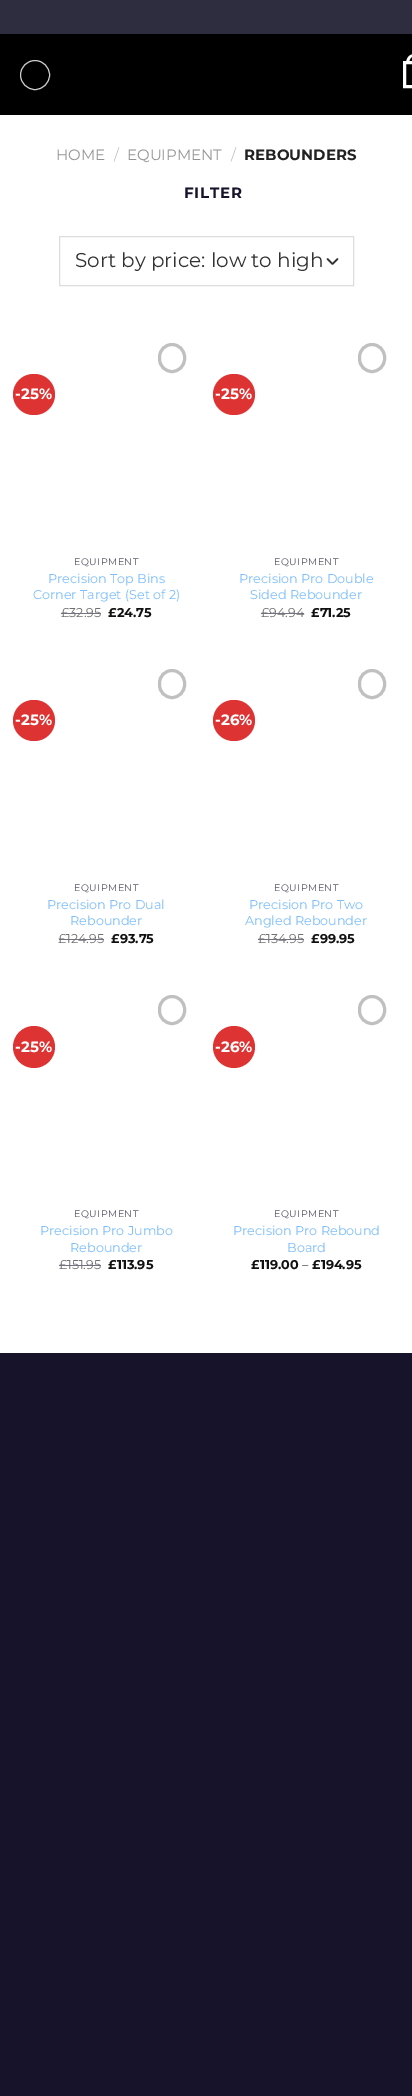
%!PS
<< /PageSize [412 2096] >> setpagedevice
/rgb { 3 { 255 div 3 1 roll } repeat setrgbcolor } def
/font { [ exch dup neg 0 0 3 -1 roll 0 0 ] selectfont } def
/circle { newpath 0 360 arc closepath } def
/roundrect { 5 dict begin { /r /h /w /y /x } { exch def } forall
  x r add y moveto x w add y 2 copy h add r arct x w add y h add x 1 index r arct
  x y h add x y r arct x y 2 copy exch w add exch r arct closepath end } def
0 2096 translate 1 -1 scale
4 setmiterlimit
255 255 255 rgb
0 0 412 2096 rectfill
46 44 63 rgb
0 0 412 34 rectfill
0 0 0 rgb
0 34 412 81 rectfill
204 204 204 rgb
35 75 14.5 circle stroke
255 255 255 rgb
3 setlinewidth
404.5 62.5 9 24 rectstroke
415 54 moveto 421 54 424 58.5 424 64 curveto 406 64 lineto 406 58.5 409 54 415 54 curveto closepath 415 56 moveto 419.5 56 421 60 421 64 curveto 409 64 lineto 409 60 410.5 56 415 56 curveto closepath eofill
51 51 51 rgb
1.7 setlinewidth
1 setlinecap
1 setlinejoin
327.5 259 moveto 332.5 264 lineto 337.5 259 lineto stroke
221 221 221 rgb
1 setlinewidth
0 setlinecap
0 setlinejoin
59.5 236.5 294 49 rectstroke
221 51 51 rgb
13 374 42 41 20.5 roundrect fill
192 192 192 rgb
3 setlinewidth
159.5 344.5 25 27 12.5 roundrect stroke
221 51 51 rgb
213 374 42 41 20.5 roundrect fill
192 192 192 rgb
359.5 344.5 25 27 12.5 roundrect stroke
221 51 51 rgb
13 700 42 41 20.5 roundrect fill
192 192 192 rgb
159.5 670.5 25 27 12.5 roundrect stroke
221 51 51 rgb
213 700 42 41 20.5 roundrect fill
192 192 192 rgb
359.5 670.5 25 27 12.5 roundrect stroke
221 51 51 rgb
34 1047 21 circle fill
192 192 192 rgb
159.5 996.5 25 27 12.5 roundrect stroke
221 51 51 rgb
234 1047 21 circle fill
192 192 192 rgb
359.5 996.5 25 27 12.5 roundrect stroke
23 19 43 rgb
0 1353 412 743 rectfill
/Montserrat-Regular 15 font
148 148 148 rgb
56 160 moveto (HOME) show
/Montserrat-Light 15 font
178 178 178 rgb
114 160 moveto (/) show
/Montserrat-Regular 15 font
148 148 148 rgb
127 160 moveto (EQUIPMENT) show
/Montserrat-Light 15 font
178 178 178 rgb
231 160 moveto (/) show
/Montserrat-Bold 15 font
34 34 34 rgb
244 160 moveto (REBOUNDERS) show
23 19 43 rgb
184 198 moveto 0.75 0 (FILTER) ashow
/Montserrat-Regular 20 font
51 51 51 rgb
75 267 moveto (Sort by price: low to high) show
/Montserrat-Bold 15 font
255 255 255 rgb
15 399 moveto (-25%) show
/Montserrat-Regular 9.5 font
93 90 107 rgb
74 565 moveto 0.5 0 (EQUIPMENT) ashow
/Montserrat-Regular 12.75 font
125 190 251 rgb
48 583 moveto (Precision Top Bins) show
33 599 moveto (Corner Target \(Set of 2\)) show
112 112 112 rgb
61 617 moveto (£32.95) show
116 113 128 rgb
61 613 40 1 rectfill
/Montserrat-Bold 12.75 font
17 17 17 rgb
108 617 moveto (£24.75) show
/Montserrat-Bold 15 font
255 255 255 rgb
215 399 moveto (-25%) show
/Montserrat-Regular 9.5 font
93 90 107 rgb
274 565 moveto 0.5 0 (EQUIPMENT) ashow
/Montserrat-Regular 12.75 font
125 190 251 rgb
239 583 moveto (Precision Pro Double) show
250 599 moveto (Sided Rebounder) show
112 112 112 rgb
261 617 moveto (£94.94) show
116 113 128 rgb
261 613 43 1 rectfill
/Montserrat-Bold 12.75 font
17 17 17 rgb
311 617 moveto (£71.25) show
/Montserrat-Bold 15 font
255 255 255 rgb
15 725 moveto (-25%) show
/Montserrat-Regular 9.5 font
93 90 107 rgb
74 891 moveto 0.5 0 (EQUIPMENT) ashow
/Montserrat-Regular 12.75 font
125 190 251 rgb
47 909 moveto (Precision Pro Dual) show
70 925 moveto (Rebounder) show
112 112 112 rgb
58 943 moveto (£124.95) show
116 113 128 rgb
59 939 45 1 rectfill
/Montserrat-Bold 12.75 font
17 17 17 rgb
111 943 moveto (£93.75) show
/Montserrat-Bold 15 font
255 255 255 rgb
215 725 moveto (-26%) show
/Montserrat-Regular 9.5 font
93 90 107 rgb
274 891 moveto 0.5 0 (EQUIPMENT) ashow
/Montserrat-Regular 12.75 font
125 190 251 rgb
249 909 moveto (Precision Pro Two) show
245 925 moveto (Angled Rebounder) show
112 112 112 rgb
258 943 moveto (£134.95) show
116 113 128 rgb
258 939 46 1 rectfill
/Montserrat-Bold 12.75 font
17 17 17 rgb
311 943 moveto (£99.95) show
/Montserrat-Bold 15 font
255 255 255 rgb
15 1052 moveto (-25%) show
/Montserrat-Regular 9.5 font
93 90 107 rgb
74 1217 moveto 0.5 0 (EQUIPMENT) ashow
/Montserrat-Regular 12.75 font
125 190 251 rgb
40 1235 moveto (Precision Pro Jumbo) show
70 1252 moveto (Rebounder) show
112 112 112 rgb
59 1269 moveto (£) show
116 113 128 rgb
59 1265 9 1 rectfill
112 112 112 rgb
67 1269 moveto (151.95) show
116 113 128 rgb
68 1265 33 1 rectfill
/Montserrat-Bold 12.75 font
17 17 17 rgb
108 1269 moveto (£113.95) show
/Montserrat-Bold 15 font
255 255 255 rgb
215 1052 moveto (-26%) show
/Montserrat-Regular 9.5 font
93 90 107 rgb
274 1217 moveto 0.5 0 (EQUIPMENT) ashow
/Montserrat-Regular 12.75 font
125 190 251 rgb
233 1235 moveto (Precision Pro Rebound) show
287 1252 moveto (Board) show
/Montserrat-Bold 12.75 font
17 17 17 rgb
251 1269 moveto (£119.00) show
/Montserrat-Regular 12.75 font
23 19 43 rgb
302 1269 moveto (–) show
/Montserrat-Bold 12.75 font
17 17 17 rgb
312 1269 moveto (£194.95) show
showpage
